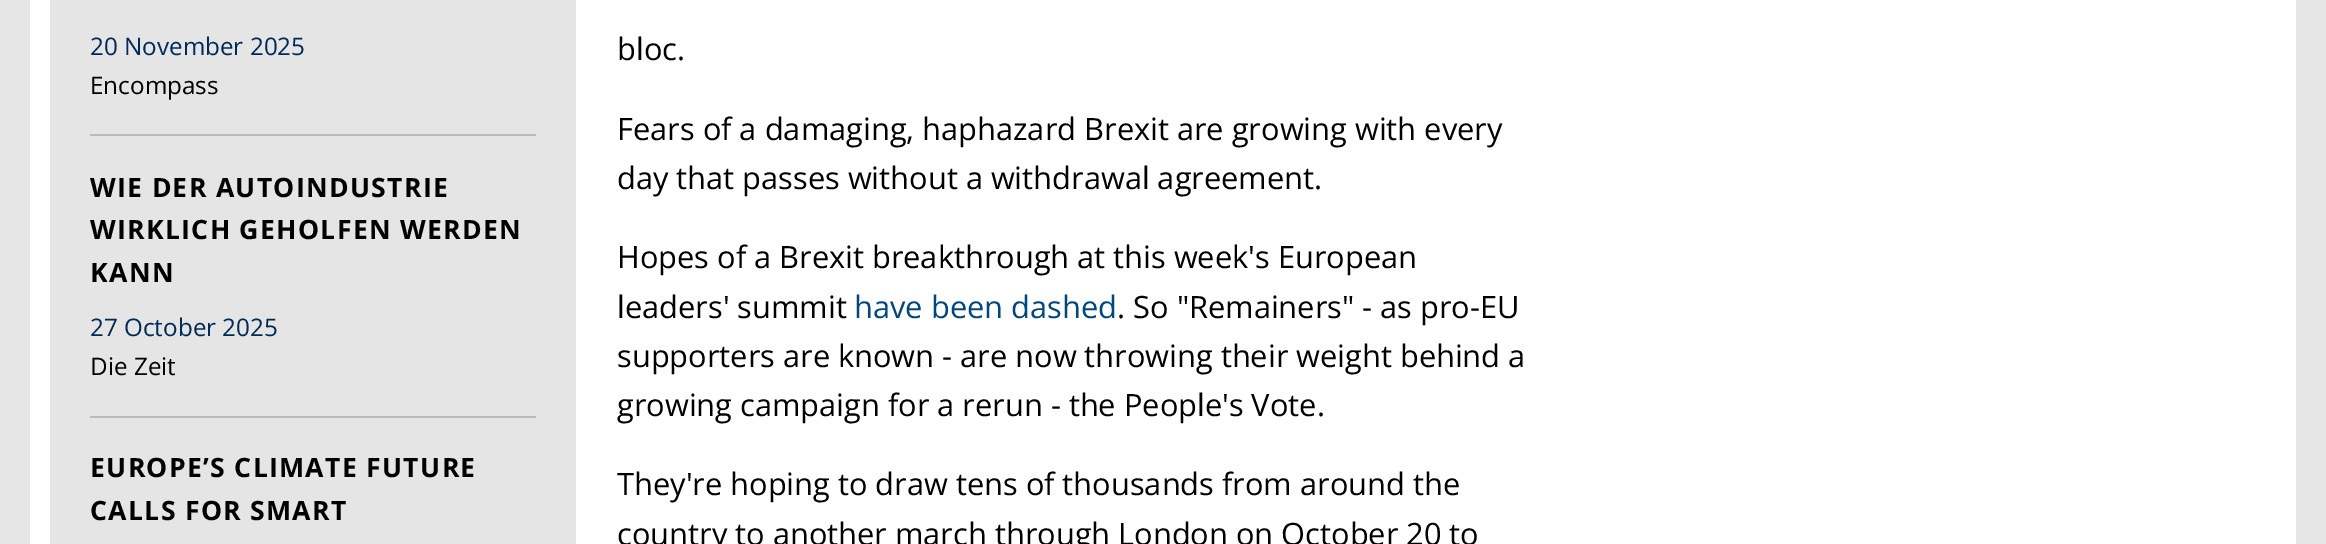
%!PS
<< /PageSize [2326 544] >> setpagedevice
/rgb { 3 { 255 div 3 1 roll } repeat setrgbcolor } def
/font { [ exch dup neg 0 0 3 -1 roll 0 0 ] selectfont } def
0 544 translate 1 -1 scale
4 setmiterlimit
230 230 230 rgb
0 0 2326 544 rectfill
[
  [30 0 2266 544 255 255 255]
  [50 0 526 544 229 229 229]
  [90 134 446 2 187 187 187]
  [90 416 446 2 187 187 187]
] { aload pop rgb rectfill } forall
/OpenSans-Regular 24.25 font
0 42 87 rgb
90 55 moveto (20 November 2025) show
0 0 0 rgb
90 94 moveto (Encompass) show
/OpenSans-Bold 26.6 font
90 197 moveto 1.3 0 (WIE DER AUTOINDUSTRIE) ashow
90 239 moveto 1.3 0 (WIRKLICH GEHOLFEN WERDEN) ashow
90 282 moveto 1.3 0 (KANN) ashow
/OpenSans-Regular 24.25 font
0 42 87 rgb
90 336 moveto (27 October 2025) show
0 0 0 rgb
90 375 moveto (Die Zeit) show
/OpenSans-Bold 26.6 font
90 477 moveto 1.3 0 (EUROPE’S CLIMATE FUTURE) ashow
90 520 moveto 1.3 0 (CALLS FOR SMART) ashow
/OpenSans-Regular 30.8 font
[
  [(bloc.) 617 60]
  [(Fears of a damaging, haphazard Brexit are growing with every) 617 140]
  [(day that passes without a withdrawal agreement.) 617 189]
  [(Hopes of a Brexit breakthrough at this week's European) 617 268]
  [(leaders' summit) 617 318]
] { aload pop moveto show } forall
0 70 127 rgb
854 318 moveto (have been dashed) show
0 0 0 rgb
[
  [(. So "Remainers" - as pro-EU) 1117 318]
  [(supporters are known - are now throwing their weight behind a) 617 367]
  [(growing campaign for a rerun - the People's Vote.) 617 416]
  [(They're hoping to draw tens of thousands from around the) 617 495]
  [(country to another march through London on October 20 to) 617 545]
] { aload pop moveto show } forall
showpage
